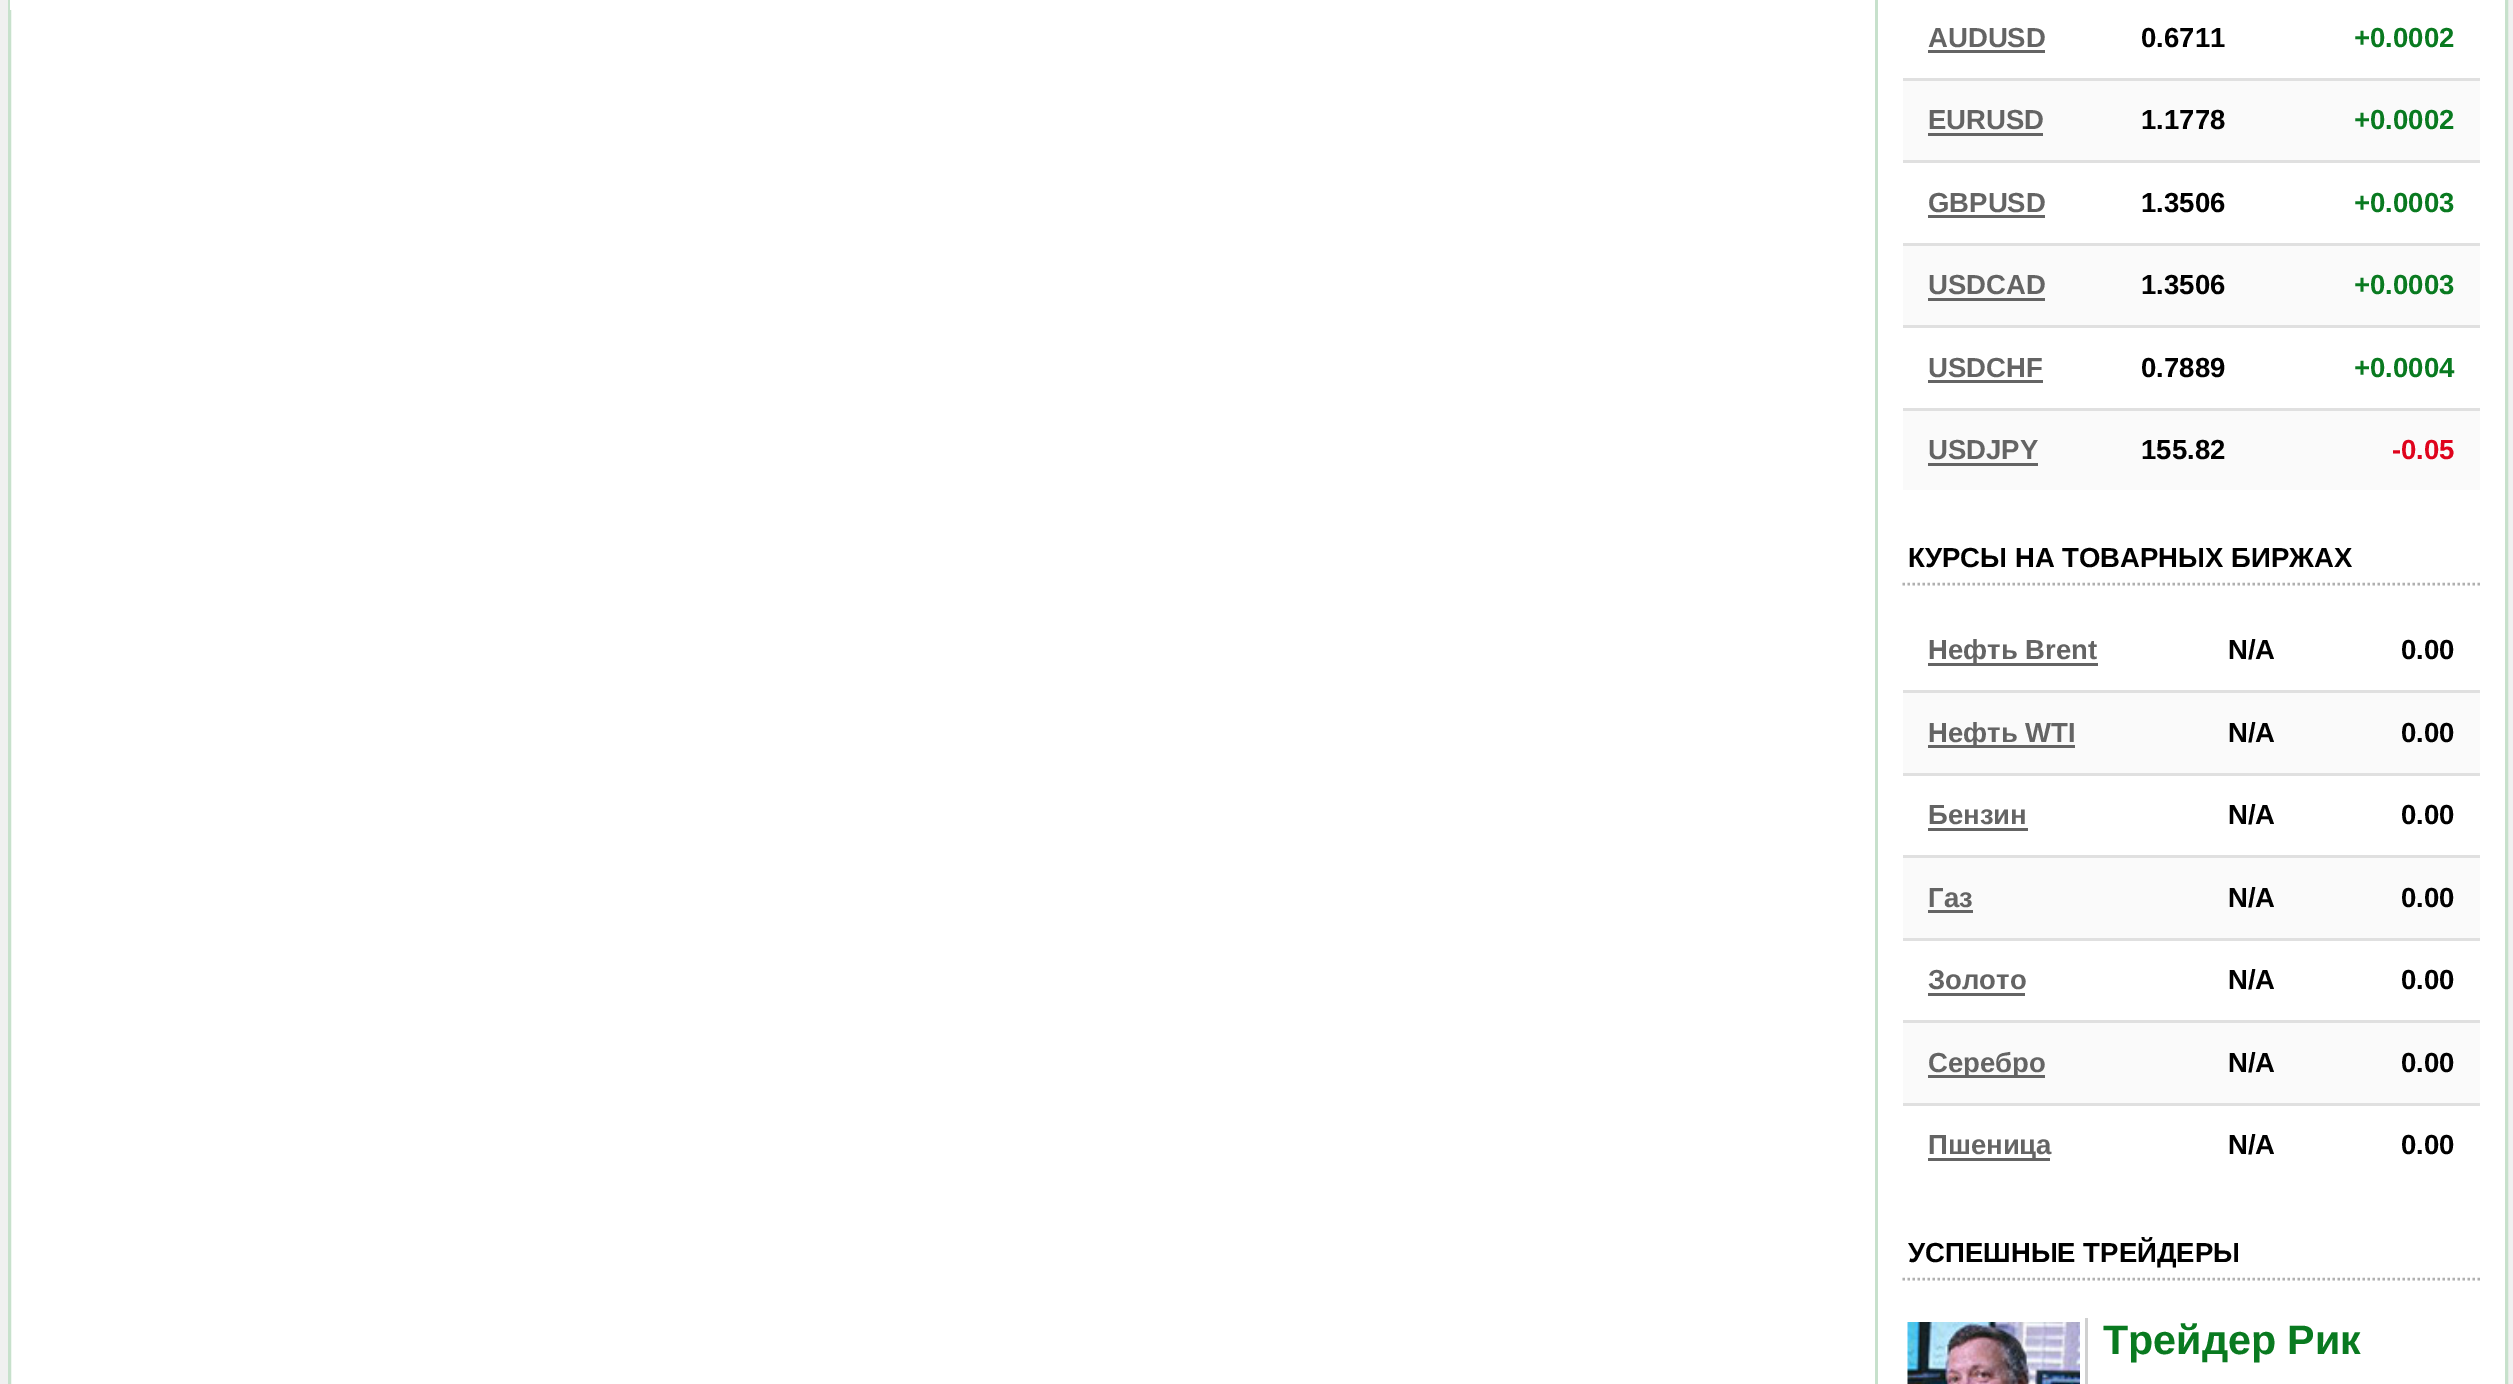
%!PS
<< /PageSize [2513 1384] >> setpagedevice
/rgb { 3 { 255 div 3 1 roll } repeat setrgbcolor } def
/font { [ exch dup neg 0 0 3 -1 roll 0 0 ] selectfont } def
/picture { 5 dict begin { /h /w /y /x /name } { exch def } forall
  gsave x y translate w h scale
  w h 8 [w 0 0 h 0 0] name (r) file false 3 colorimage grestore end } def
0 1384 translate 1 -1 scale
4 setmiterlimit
240 240 240 rgb
0 0 2513 1384 rectfill
255 255 255 rgb
11 10 1864 1374 rectfill
199 225 204 rgb
3 setlinewidth
9.5 -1.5 2497 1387 rectstroke
gsave 10 0 moveto 1875 0 lineto 1875 10 lineto 10 10 lineto closepath clip newpath
<< /ShadingType 2 /ColorSpace /DeviceRGB /Coords [942 -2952 943 10] /Extend [true true] /Function << /FunctionType 3 /Domain [0 1] /Functions [<< /FunctionType 2 /Domain [0 1] /C0 [0.78 0.882 0.8] /C1 [1 1 1] /N 1 >> << /FunctionType 2 /Domain [0 1] /C0 [1 1 1] /C1 [1 1 1] /N 1 >>] /Bounds [0.04] /Encode [0 1 0 1] >> >> shfill grestore
gsave 1878 0 moveto 2505 0 lineto 2505 1384 lineto 1878 1384 lineto closepath clip newpath
<< /ShadingType 2 /ColorSpace /DeviceRGB /Coords [2191 -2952 2191 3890] /Extend [true true] /Function << /FunctionType 3 /Domain [0 1] /Functions [<< /FunctionType 2 /Domain [0 1] /C0 [0.78 0.882 0.8] /C1 [1 1 1] /N 1 >> << /FunctionType 2 /Domain [0 1] /C0 [1 1 1] /C1 [1 1 1] /N 1 >>] /Bounds [0.02] /Encode [0 1 0 1] >> >> shfill grestore
[
  [1875 0 3 1384 199 225 204]
  [1928 50 117 3 100 100 100]
  [1903 81 577 79 250 250 250]
  [1928 133 115 3 100 100 100]
  [1903 78 577 3 224 224 224]
  [1928 215 117 3 100 100 100]
  [1903 160 577 3 224 224 224]
  [1903 246 577 79 250 250 250]
  [1928 298 117 3 100 100 100]
  [1903 243 577 3 224 224 224]
  [1928 380 115 3 100 100 100]
  [1903 325 577 3 224 224 224]
  [1903 411 577 79 250 250 250]
  [1928 463 110 3 100 100 100]
  [1903 408 577 3 224 224 224]
] { aload pop rgb rectfill } forall
176 176 176 rgb
2.5 setlinewidth
[2.5 2.5] 0 setdash
1902.5 584 moveto 2480 584 lineto stroke
[
  [1928 663 170 3 100 100 100]
  [1903 693 577 80 250 250 250]
  [1928 745 147 3 100 100 100]
  [1903 690 577 3 224 224 224]
  [1928 828 100 3 100 100 100]
  [1903 773 577 3 224 224 224]
  [1903 858 577 80 250 250 250]
  [1928 910 45 3 100 100 100]
  [1903 855 577 3 224 224 224]
  [1928 993 97 3 100 100 100]
  [1903 938 577 3 224 224 224]
  [1903 1023 577 80 250 250 250]
  [1928 1075 117 3 100 100 100]
  [1903 1020 577 3 224 224 224]
  [1928 1158 122 3 100 100 100]
  [1903 1103 577 3 224 224 224]
] { aload pop rgb rectfill } forall
176 176 176 rgb
1902.5 1279 moveto 2480 1279 lineto stroke
(img/1.rgb) 1907 1322 173 62 picture
208 208 208 rgb
2085 1318 3 66 rectfill
/LiberationSans-Bold 27.5 font
100 100 100 rgb
1928 47 moveto (AUDUSD) show
0 0 0 rgb
2141 47 moveto (0.6711) show
9 122 32 rgb
2354 47 moveto (+0.0002) show
100 100 100 rgb
1928 129 moveto (EURUSD) show
0 0 0 rgb
2141 129 moveto (1.1778) show
9 122 32 rgb
2354 129 moveto (+0.0002) show
100 100 100 rgb
1928 212 moveto (GBPUSD) show
0 0 0 rgb
2141 212 moveto (1.3506) show
9 122 32 rgb
2354 212 moveto (+0.0003) show
100 100 100 rgb
1928 294 moveto (USDCAD) show
0 0 0 rgb
2141 294 moveto (1.3506) show
9 122 32 rgb
2354 294 moveto (+0.0003) show
100 100 100 rgb
1928 377 moveto (USDCHF) show
0 0 0 rgb
2141 377 moveto (0.7889) show
9 122 32 rgb
2354 377 moveto (+0.0004) show
100 100 100 rgb
1928 459 moveto (USDJPY) show
0 0 0 rgb
2141 459 moveto (155.82) show
223 3 28 rgb
2392 459 moveto (-0.05) show
0 0 0 rgb
1908 567 moveto (КУРСЫ НА ТОВАРНЫХ БИРЖАХ) show
100 100 100 rgb
1928 659 moveto (Нефть Brent) show
0 0 0 rgb
2228 659 moveto (N/A) show
2401 659 moveto (0.00) show
100 100 100 rgb
1928 742 moveto (Нефть WTI) show
0 0 0 rgb
2228 742 moveto (N/A) show
2401 742 moveto (0.00) show
100 100 100 rgb
1928 824 moveto (Бензин) show
0 0 0 rgb
2228 824 moveto (N/A) show
2401 824 moveto (0.00) show
100 100 100 rgb
1928 907 moveto (Газ) show
0 0 0 rgb
2228 907 moveto (N/A) show
2401 907 moveto (0.00) show
100 100 100 rgb
1928 989 moveto (Золото) show
0 0 0 rgb
2228 989 moveto (N/A) show
2401 989 moveto (0.00) show
100 100 100 rgb
1928 1072 moveto (Серебро) show
0 0 0 rgb
2228 1072 moveto (N/A) show
2401 1072 moveto (0.00) show
100 100 100 rgb
1928 1154 moveto (Пшеница) show
0 0 0 rgb
[
  [(N/A) 2228 1154]
  [(0.00) 2401 1154]
  [(УСПЕШНЫЕ ТРЕЙДЕРЫ) 1908 1262]
] { aload pop moveto show } forall
/LiberationSans-Bold 41.25 font
9 122 32 rgb
2103 1354 moveto (Трейдер Рик) show
showpage
